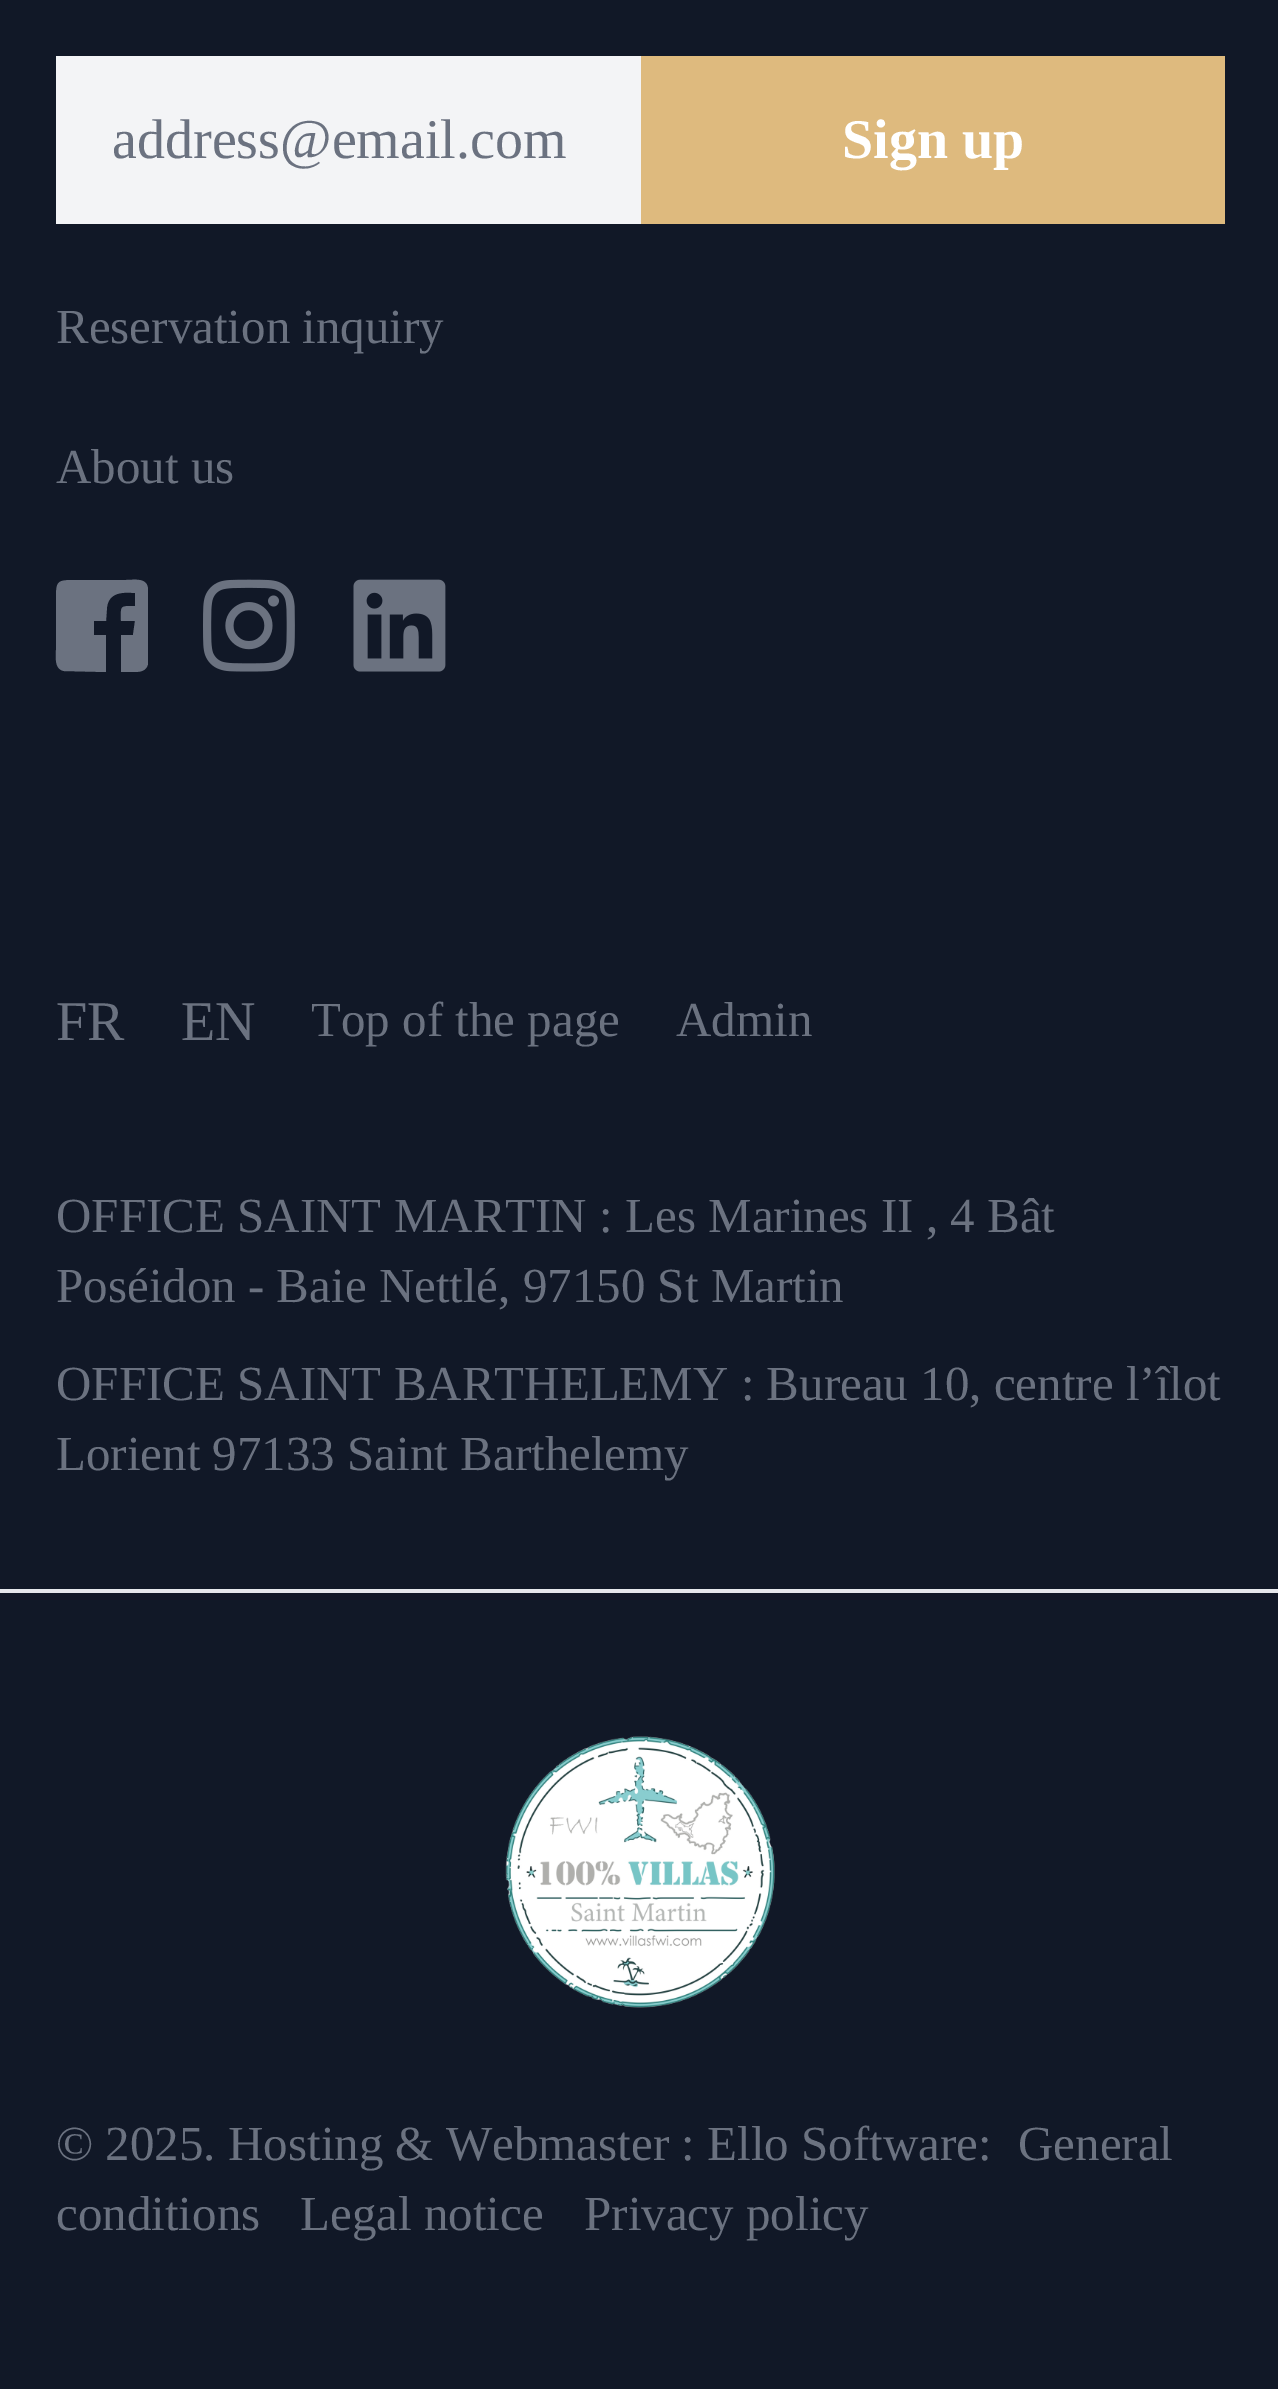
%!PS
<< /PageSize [1278 2389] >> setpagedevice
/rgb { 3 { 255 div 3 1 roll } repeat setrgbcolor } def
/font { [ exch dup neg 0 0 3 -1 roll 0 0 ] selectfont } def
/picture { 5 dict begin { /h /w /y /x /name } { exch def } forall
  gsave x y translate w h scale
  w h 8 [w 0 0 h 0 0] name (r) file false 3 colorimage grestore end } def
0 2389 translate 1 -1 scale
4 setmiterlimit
17 24 39 rgb
0 0 1278 2389 rectfill
243 244 246 rgb
56 56 585 168 rectfill
222 186 126 rgb
641 56 584 168 rectfill
107 114 128 rgb
148 590 moveto 148 664 lineto 146 672 139 672 132 672 curveto 121 672 lineto 121 635 lineto 133 635 lineto 135 621 lineto 121 621 lineto 121 606 119 606 135 606 curveto 135 593 lineto 123 592 109 592 107 607 curveto 106 621 lineto 94 621 lineto 94 635 lineto 106 635 lineto 106 672 lineto 64 671 lineto 54 669 56 657 56 650 curveto 56 602 lineto 56 580 56 580 78 580 curveto 126 580 lineto 134 580 148 577 148 590 curveto closepath fill
(img/1.rgb) 203 579 92 93 picture
(img/2.rgb) 353 579 93 93 picture
229 231 235 rgb
0 1589 1278 4 rectfill
(img/3.rgb) 505 1736 270 272 picture
/LiberationSerif-Regular 56 font
107 114 128 rgb
112 158 moveto (address@email.com) show
/LiberationSerif-Bold 56 font
255 255 255 rgb
842 158 moveto (Sign up) show
/LiberationSerif-Regular 49 font
107 114 128 rgb
56 343 moveto (Reservation inquiry) show
56 483 moveto (About us) show
/LiberationSerif-Regular 56 font
56 1040 moveto (FR) show
181 1040 moveto (EN) show
/LiberationSerif-Regular 49 font
[
  [(Top of the page) 311 1036]
  [(Admin) 676 1036]
  [(OFFICE SAINT MARTIN : Les Marines II , 4 Bât) 56 1232]
  [(Poséidon - Baie Nettlé, 97150 St Martin) 56 1302]
  [(OFFICE SAINT BARTHELEMY : Bureau 10, centre l’îlot) 56 1400]
  [(Lorient 97133 Saint Barthelemy) 56 1470]
  [(© 2025. Hosting & Webmaster : Ello Software:) 56 2160]
  [(General) 1018 2160]
  [(conditions) 56 2230]
  [(Legal notice) 300 2230]
  [(Privacy policy) 584 2230]
] { aload pop moveto show } forall
showpage
